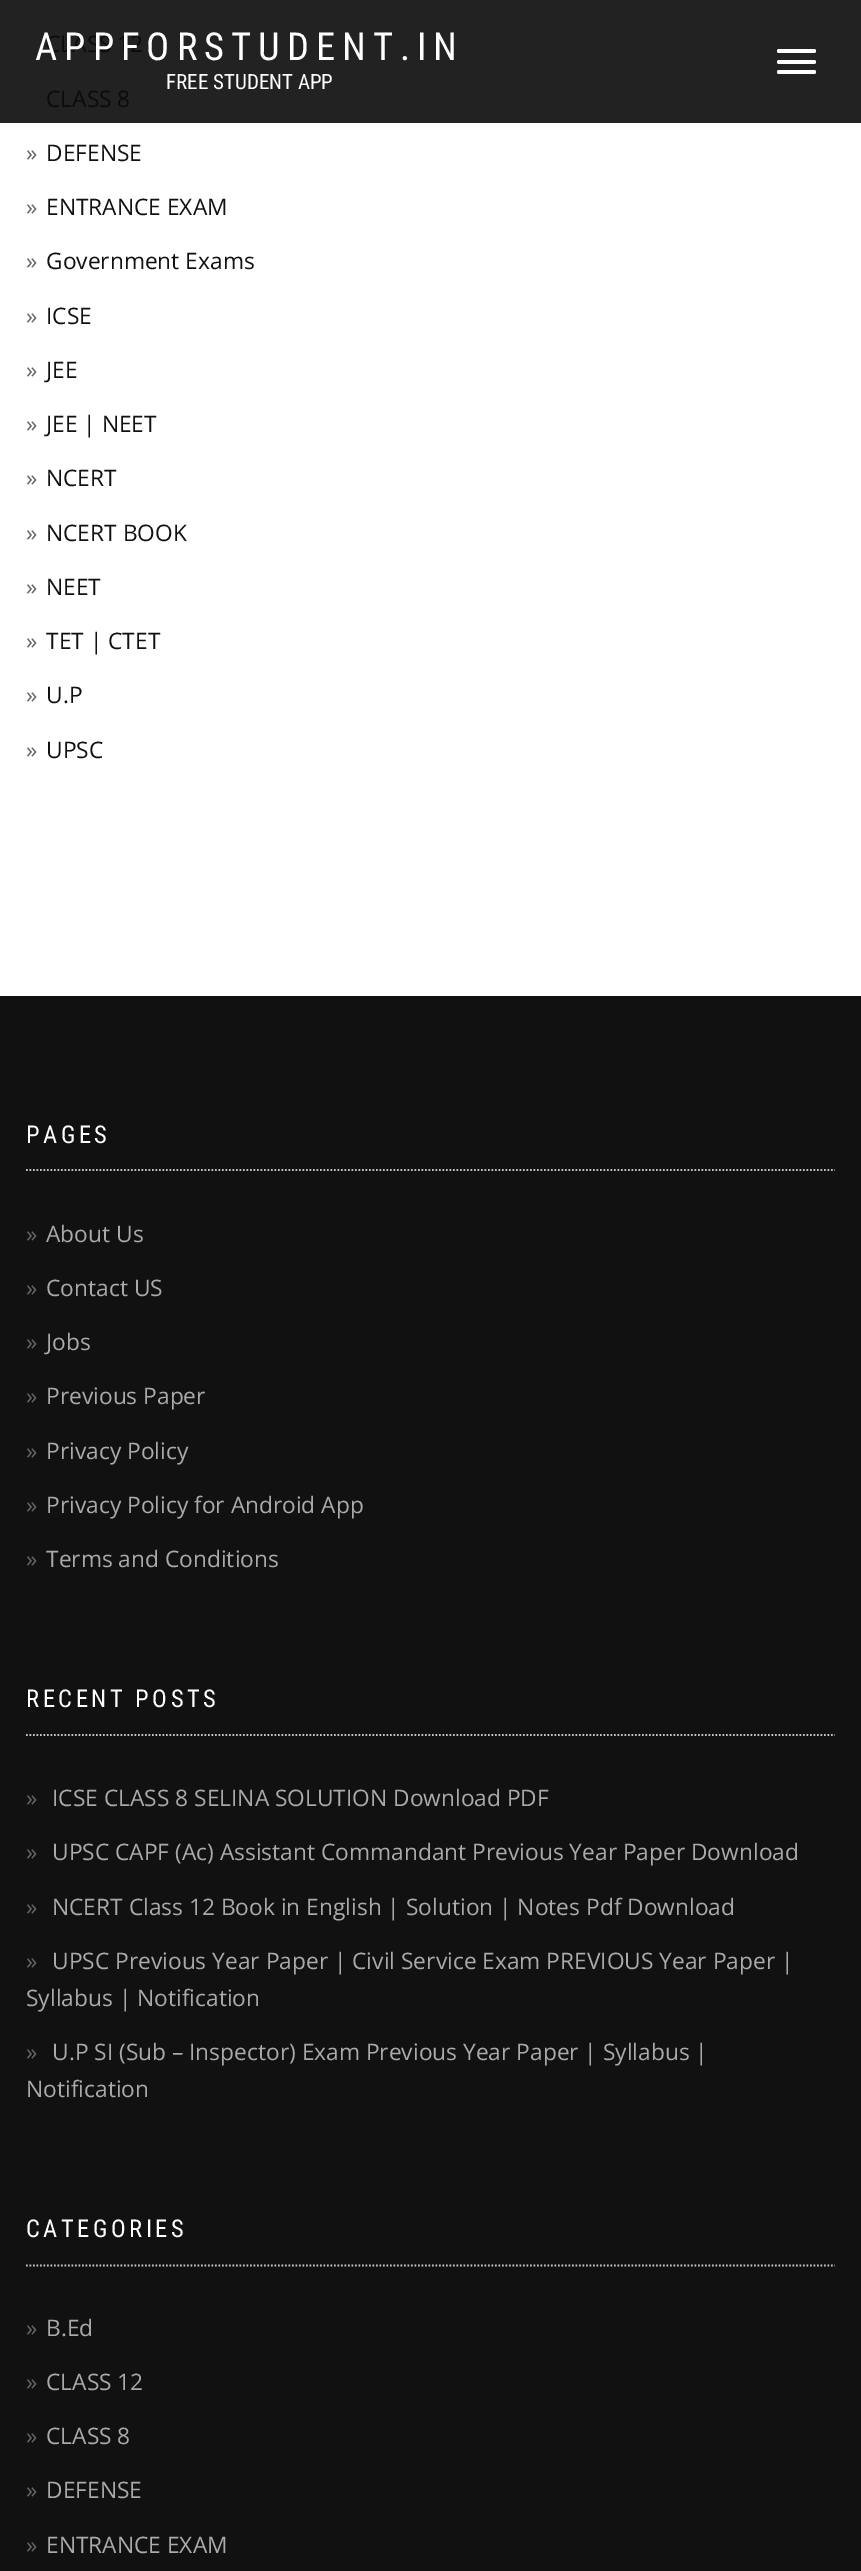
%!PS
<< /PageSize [861 2571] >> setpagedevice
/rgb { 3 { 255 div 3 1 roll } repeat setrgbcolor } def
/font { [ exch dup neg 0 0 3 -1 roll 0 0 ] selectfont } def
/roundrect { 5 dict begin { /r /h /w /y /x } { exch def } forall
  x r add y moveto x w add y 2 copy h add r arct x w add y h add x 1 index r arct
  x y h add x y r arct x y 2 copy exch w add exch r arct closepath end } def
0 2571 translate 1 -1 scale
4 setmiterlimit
255 255 255 rgb
0 0 861 2571 rectfill
34 34 34 rgb
0 0 861 123 rectfill
255 255 255 rgb
777 49 39 4 2 roundrect fill
777 60 39 4 2 roundrect fill
777 70 39 4 2 roundrect fill
17 17 17 rgb
0 996 861 1575 rectfill
194 194 194 rgb
1.8 setlinewidth
[1.75 1.75] 0 setdash
26 1170 moveto 835 1170 lineto stroke
26 1735 moveto 835 1735 lineto stroke
26 2265.5 moveto 835 2265.5 lineto stroke
/RobotoCondensed-Regular 21 font
255 255 255 rgb
166 89 moveto (FREE STUDENT APP) show
/OpenSans-Regular 22.75 font
11 11 11 rgb
46 52 moveto (CLASS 12) show
/RobotoCondensed-Regular 38.5 font
255 255 255 rgb
35 60 moveto 7 0 (APPFORSTUDENT.IN) ashow
/OpenSans-Regular 22.75 font
11 11 11 rgb
46 107 moveto (CLASS 8) show
102 102 102 rgb
26 161 moveto (») show
17 17 17 rgb
46 161 moveto (DEFENSE) show
102 102 102 rgb
26 215 moveto (») show
17 17 17 rgb
46 215 moveto (ENTRANCE EXAM) show
102 102 102 rgb
26 269 moveto (») show
17 17 17 rgb
46 269 moveto (Government Exams) show
102 102 102 rgb
26 324 moveto (») show
17 17 17 rgb
46 324 moveto (ICSE) show
102 102 102 rgb
26 378 moveto (») show
17 17 17 rgb
46 378 moveto (JEE) show
102 102 102 rgb
26 432 moveto (») show
17 17 17 rgb
46 432 moveto (JEE | NEET) show
102 102 102 rgb
26 486 moveto (») show
17 17 17 rgb
46 486 moveto (NCERT) show
102 102 102 rgb
26 541 moveto (») show
17 17 17 rgb
46 541 moveto (NCERT BOOK) show
102 102 102 rgb
26 595 moveto (») show
17 17 17 rgb
46 595 moveto (NEET) show
102 102 102 rgb
26 649 moveto (») show
17 17 17 rgb
46 649 moveto (TET | CTET) show
102 102 102 rgb
26 703 moveto (») show
17 17 17 rgb
46 703 moveto (U.P) show
102 102 102 rgb
26 758 moveto (») show
17 17 17 rgb
46 758 moveto (UPSC) show
/RobotoCondensed-Regular 24.5 font
255 255 255 rgb
26 1143 moveto 3.5 0 (PAGES) ashow
/OpenSans-Regular 22.75 font
102 102 102 rgb
26 1242 moveto (») show
170 170 170 rgb
46 1242 moveto (About Us) show
102 102 102 rgb
26 1296 moveto (») show
170 170 170 rgb
46 1296 moveto (Contact US) show
102 102 102 rgb
26 1350 moveto (») show
170 170 170 rgb
46 1350 moveto (Jobs) show
102 102 102 rgb
26 1404 moveto (») show
170 170 170 rgb
46 1404 moveto (Previous Paper) show
102 102 102 rgb
26 1459 moveto (») show
170 170 170 rgb
46 1459 moveto (Privacy Policy) show
102 102 102 rgb
26 1513 moveto (») show
170 170 170 rgb
46 1513 moveto (Privacy Policy for Android App) show
102 102 102 rgb
26 1567 moveto (») show
170 170 170 rgb
46 1567 moveto (Terms and Conditions) show
/RobotoCondensed-Regular 24.5 font
255 255 255 rgb
26 1707 moveto 3.5 0 (RECENT POSTS) ashow
/OpenSans-Regular 22.75 font
102 102 102 rgb
26 1806 moveto (») show
170 170 170 rgb
52 1806 moveto (ICSE CLASS 8 SELINA SOLUTION Download PDF) show
102 102 102 rgb
26 1860 moveto (») show
170 170 170 rgb
52 1860 moveto (UPSC CAPF \(Ac\) Assistant Commandant Previous Year Paper Download) show
102 102 102 rgb
26 1915 moveto (») show
170 170 170 rgb
52 1915 moveto (NCERT Class 12 Book in English | Solution | Notes Pdf Download) show
102 102 102 rgb
26 1969 moveto (») show
170 170 170 rgb
52 1969 moveto (UPSC Previous Year Paper | Civil Service Exam PREVIOUS Year Paper |) show
26 2006 moveto (Syllabus | Notification) show
102 102 102 rgb
26 2060 moveto (») show
170 170 170 rgb
52 2060 moveto (U.P SI \(Sub – Inspector\) Exam Previous Year Paper | Syllabus |) show
26 2097 moveto (Notification) show
/RobotoCondensed-Regular 24.5 font
255 255 255 rgb
26 2237 moveto 3.5 0 (CATEGORIES) ashow
/OpenSans-Regular 22.75 font
102 102 102 rgb
26 2336 moveto (») show
170 170 170 rgb
46 2336 moveto (B.Ed) show
102 102 102 rgb
26 2390 moveto (») show
170 170 170 rgb
46 2390 moveto (CLASS 12) show
102 102 102 rgb
26 2444 moveto (») show
170 170 170 rgb
46 2444 moveto (CLASS 8) show
102 102 102 rgb
26 2498 moveto (») show
170 170 170 rgb
46 2498 moveto (DEFENSE) show
102 102 102 rgb
26 2553 moveto (») show
170 170 170 rgb
46 2553 moveto (ENTRANCE EXAM) show
showpage
